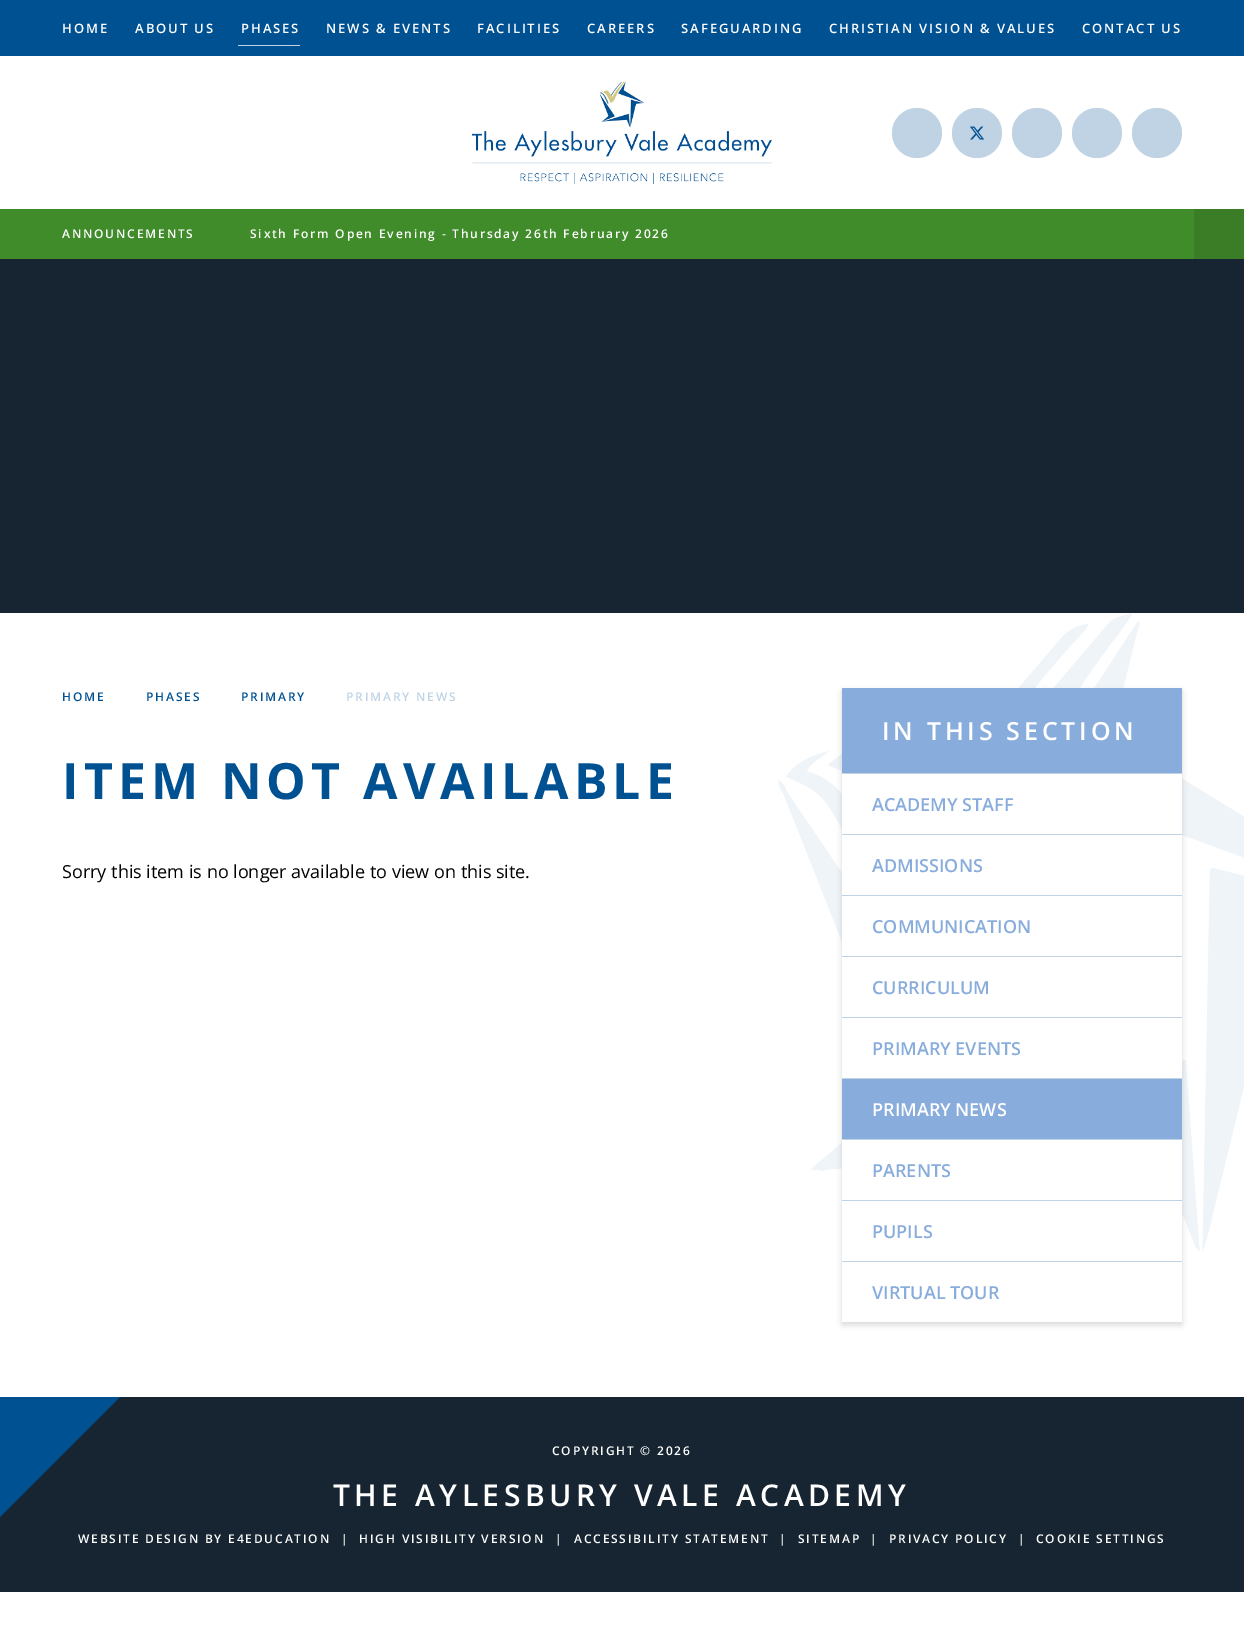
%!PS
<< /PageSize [1244 1629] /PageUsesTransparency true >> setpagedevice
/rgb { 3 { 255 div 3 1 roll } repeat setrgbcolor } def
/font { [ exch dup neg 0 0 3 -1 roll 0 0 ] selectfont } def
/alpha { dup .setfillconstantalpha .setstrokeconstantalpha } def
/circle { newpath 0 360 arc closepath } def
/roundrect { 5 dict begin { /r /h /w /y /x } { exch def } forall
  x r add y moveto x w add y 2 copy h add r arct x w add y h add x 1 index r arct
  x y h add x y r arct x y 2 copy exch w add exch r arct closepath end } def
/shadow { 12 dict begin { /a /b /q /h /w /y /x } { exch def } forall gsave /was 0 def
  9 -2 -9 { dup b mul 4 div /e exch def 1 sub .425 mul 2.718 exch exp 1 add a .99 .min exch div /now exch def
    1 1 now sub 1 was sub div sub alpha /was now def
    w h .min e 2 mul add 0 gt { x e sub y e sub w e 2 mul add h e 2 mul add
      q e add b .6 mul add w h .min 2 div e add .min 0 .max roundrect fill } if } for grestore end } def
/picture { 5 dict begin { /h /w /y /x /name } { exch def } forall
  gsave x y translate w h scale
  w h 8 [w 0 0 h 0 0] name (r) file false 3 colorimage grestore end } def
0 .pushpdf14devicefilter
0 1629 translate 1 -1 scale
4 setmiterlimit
255 255 255 rgb
0 0 1244 1629 rectfill
0 81 146 rgb
0 0 1244 56 rectfill
191 211 228 rgb
238 45 62 1 rectfill
(img/1.rgb) 472 81 300 103 picture
917 133 25 circle fill
977 133 25 circle fill
(img/2.rgb) 970 126 14 14 picture
1037 133 25 circle fill
1097 133 25 circle fill
1157 133 25 circle fill
[
  [0 209 1194 50 64 139 42]
  [1194 209 50 50 58 125 38]
  [0 259 1244 354 22 37 49]
] { aload pop rgb rectfill } forall
(img/3.rgb) 778 613 466 639 picture
gsave
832 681 moveto 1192 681 lineto 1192 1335 lineto 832 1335 lineto closepath 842 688 moveto 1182 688 lineto 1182 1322 lineto 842 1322 lineto closepath eoclip newpath
0 0 0 rgb
842 691 340 634 0 3 0.15 shadow
grestore
[
  [842 688 340 85 136 172 219]
  [842 773 340 1 191 211 228]
  [842 834 340 1 191 211 228]
  [842 774 340 60 255 255 255]
  [842 895 340 1 191 211 228]
  [842 835 157 60 255 255 255]
  [842 956 340 1 191 211 228]
  [842 896 117 60 255 255 255]
  [842 1017 340 1 191 211 228]
  [848 957 92 60 255 255 255]
  [842 1078 340 1 191 211 228]
  [872 1018 310 60 255 255 255]
  [842 1139 340 1 191 211 228]
  [842 1079 340 60 136 172 219]
  [842 1200 340 1 191 211 228]
  [842 1140 340 60 255 255 255]
  [842 1261 340 1 191 211 228]
  [1177 1201 5 12 255 255 255]
  [0 1397 1244 195 22 37 49]
] { aload pop rgb rectfill } forall
0 81 146 rgb
0 1397 moveto 120 1397 lineto 0 1517 lineto closepath fill
/OpenSans-SemiBold 13 font
255 255 255 rgb
62 33 moveto 1.95 0 (HOME) ashow
135 33 moveto 1.95 0 (ABOUT US) ashow
241 33 moveto 1.95 0 (PHASES) ashow
326 33 moveto 1.95 0 (NEWS & EVENTS) ashow
477 33 moveto 1.95 0 (FACILITIES) ashow
587 33 moveto 1.95 0 (CAREERS) ashow
681 33 moveto 1.95 0 (SAFEGUARDING) ashow
829 33 moveto 1.95 0 (CHRISTIAN VISION & VALUES) ashow
1082 33 moveto 1.95 0 (CONTACT US) ashow
/OpenSans-SemiBold 12 font
62 238 moveto 1.8 0 (ANNOUNCEMENTS) ashow
250 238 moveto 1.8 0 (Sixth Form Open Evening - Thursday 26th February 2026) ashow
0 81 146 rgb
62 701 moveto 1.8 0 (HOME) ashow
146 701 moveto 1.8 0 (PHASES) ashow
241 701 moveto 1.8 0 (PRIMARY) ashow
191 211 228 rgb
346 701 moveto 1.8 0 (PRIMARY NEWS) ashow
/OpenSans-Bold 50 font
0 81 146 rgb
62 799 moveto 5 0 (ITEM NOT AVAILABLE) ashow
/OpenSans-Regular 18 font
0 0 0 rgb
62 878 moveto (Sorry this item is no longer available to view on this site.) show
/OpenSans-SemiBold 25 font
255 255 255 rgb
882 740 moveto 3.75 0 (IN THIS SECTION) ashow
/OpenSans-SemiBold 18 font
136 172 219 rgb
[
  [(ACADEMY STAFF) 872 811]
  [(ADMISSIONS) 872 872]
  [(COMMUNICATION) 872 933]
  [(CURRICULUM) 872 994]
  [(PRIMARY EVENTS) 872 1055]
] { aload pop moveto show } forall
255 255 255 rgb
872 1116 moveto (PRIMARY NEWS) show
136 172 219 rgb
[
  [(PARENTS) 872 1177]
  [(PUPILS) 872 1238]
  [(VIRTUAL TOUR) 872 1299]
] { aload pop moveto show } forall
/OpenSans-SemiBold 12 font
255 255 255 rgb
552 1455 moveto 1.8 0 (COPYRIGHT © 2026) ashow
/OpenSans-SemiBold 30 font
333 1506 moveto 4.5 0 (THE AYLESBURY VALE ACADEMY) ashow
/OpenSans-SemiBold 12 font
78 1543 moveto 1.8 0 (WEBSITE DESIGN BY E4EDUCATION) ashow
341 1543 moveto 1.8 0 (|) ashow
359 1543 moveto 1.8 0 (HIGH VISIBILITY VERSION) ashow
555 1543 moveto 1.8 0 (|) ashow
574 1543 moveto 1.8 0 (ACCESSIBILITY STATEMENT) ashow
779 1543 moveto 1.8 0 (|) ashow
798 1543 moveto 1.8 0 (SITEMAP) ashow
870 1543 moveto 1.8 0 (|) ashow
889 1543 moveto 1.8 0 (PRIVACY POLICY) ashow
1018 1543 moveto 1.8 0 (|) ashow
1036 1543 moveto 1.8 0 (COOKIE SETTINGS) ashow
.poppdf14devicefilter showpage
